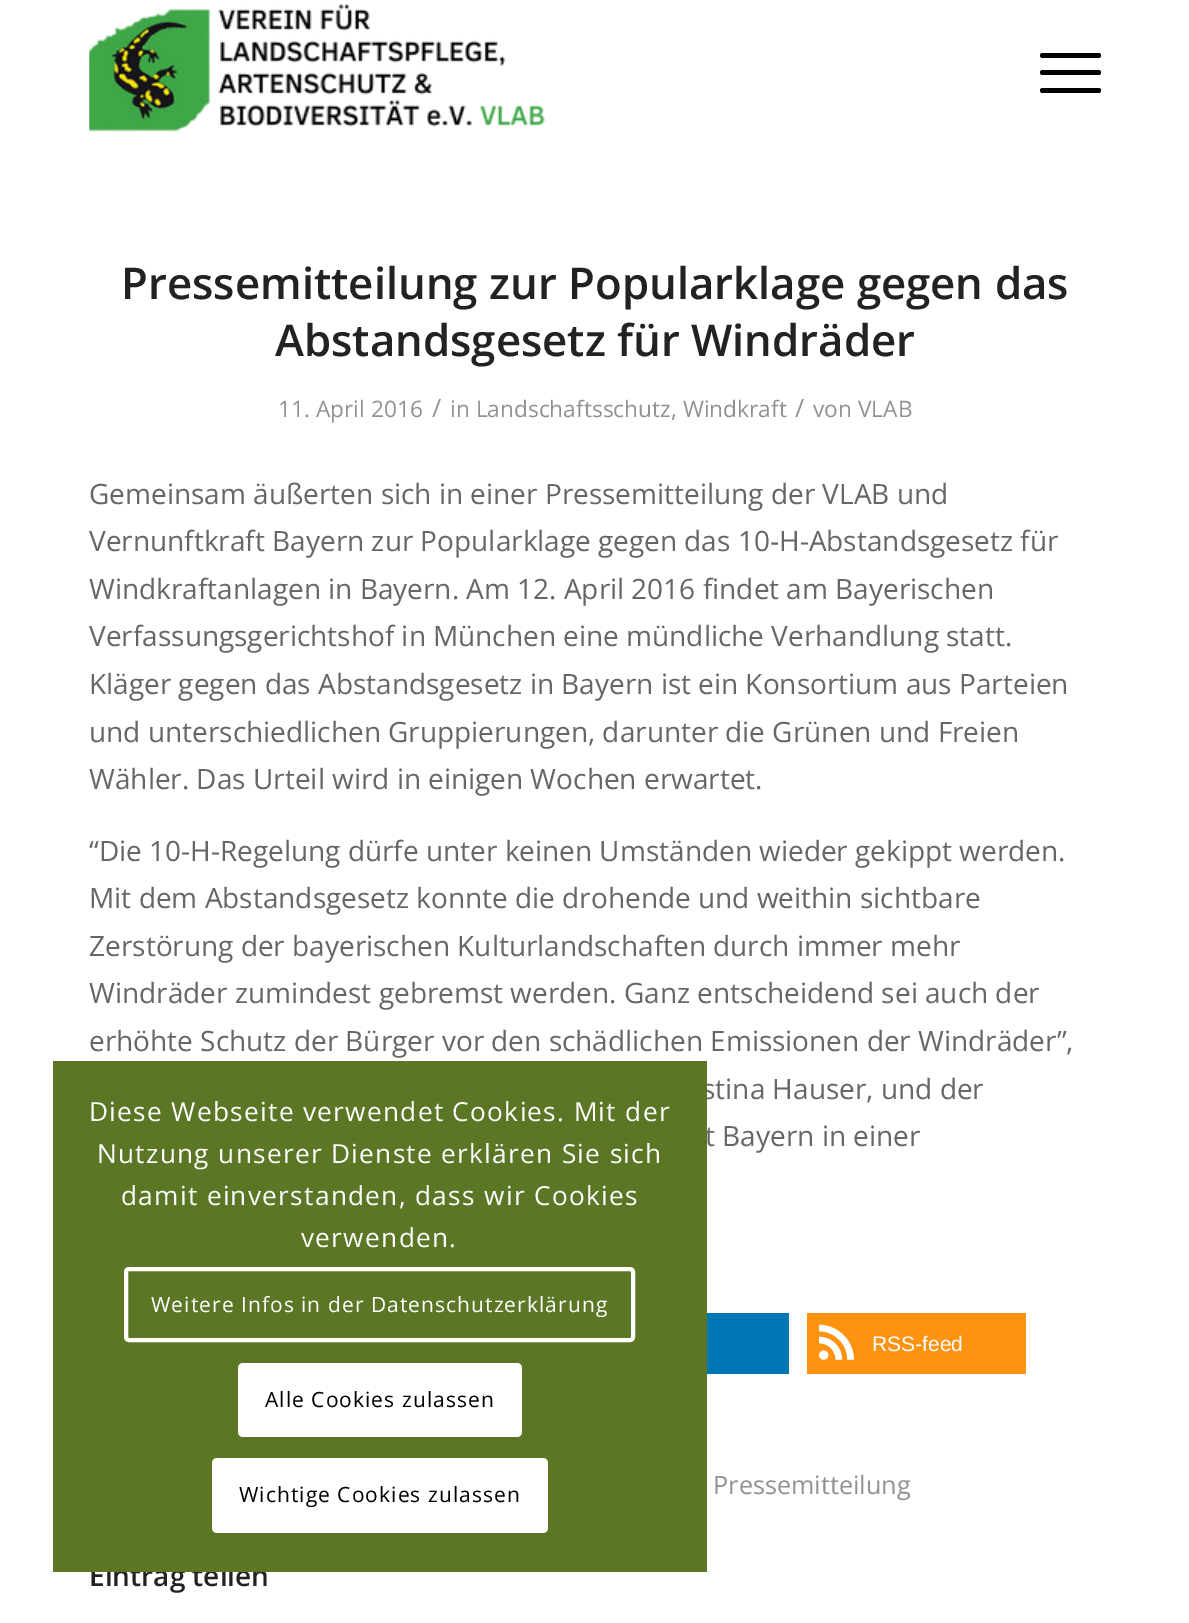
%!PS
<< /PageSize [1189 1623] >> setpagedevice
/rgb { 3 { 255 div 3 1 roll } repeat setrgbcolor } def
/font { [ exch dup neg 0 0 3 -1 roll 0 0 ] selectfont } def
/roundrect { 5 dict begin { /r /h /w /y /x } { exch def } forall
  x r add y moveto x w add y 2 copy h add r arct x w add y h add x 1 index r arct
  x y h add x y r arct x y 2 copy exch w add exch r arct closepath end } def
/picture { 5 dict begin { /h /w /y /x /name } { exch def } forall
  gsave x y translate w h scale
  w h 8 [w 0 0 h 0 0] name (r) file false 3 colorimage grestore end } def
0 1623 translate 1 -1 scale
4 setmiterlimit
255 255 255 rgb
0 0 1189 1623 rectfill
(img/1.rgb) 89 4 456 128 picture
0 0 0 rgb
1040 70 61 5 2.5 roundrect fill
1040 53 61 5 2.5 roundrect fill
1040 88 61 5 2.5 roundrect fill
0 119 181 rgb
707 1313 82 61 rectfill
254 147 18 rgb
807 1313 219 61 rectfill
(img/2.rgb) 819 1324 35 36 picture
/OpenSans-SemiBold 43.75 font
34 34 34 rgb
121 299 moveto (Pressemitteilung zur Popularklage gegen das) show
275 356 moveto (Abstandsgesetz für Windräder) show
/OpenSans-Regular 22.7 font
145 145 145 rgb
278 417 moveto (11. April 2016) show
/OpenSans-Regular 25.25 font
432 417 moveto (/) show
/OpenSans-Regular 22.7 font
450 417 moveto (in Landschaftsschutz, Windkraft) show
/OpenSans-Regular 25.25 font
795 417 moveto (/) show
/OpenSans-Regular 22.7 font
813 417 moveto (von VLAB) show
/OpenSans-Regular 28 font
102 102 102 rgb
89 504 moveto (Gemeinsam äußerten sich in einer Pressemitteilung der VLAB und) show
89 551 moveto (Vernunftkraft Bayern zur Popularklage gegen das 10) show
/LiberationSans-Regular 28 font
770 551 moveto (‐) show
/OpenSans-Regular 28 font
[
  [(H-Abstandsgesetz für) 779 551]
  [(Windkraftanlagen in Bayern. Am 12. April 2016 findet am Bayerischen) 89 599]
  [(Verfassungsgerichtshof in München eine mündliche Verhandlung statt.) 89 646]
  [(Kläger gegen das Abstandsgesetz in Bayern ist ein Konsortium aus Parteien) 89 694]
  [(und unterschiedlichen Gruppierungen, darunter die Grünen und Freien) 89 742]
  [(Wähler. Das Urteil wird in einigen Wochen erwartet.) 89 789]
  [(“Die 10-H-Regelung dürfe unter keinen Umständen wieder gekippt werden.) 89 861]
  [(Mit dem Abstandsgesetz konnte die drohende und weithin sichtbare) 89 908]
  [(Zerstörung der bayerischen Kulturlandschaften durch immer mehr) 89 956]
  [(Windräder zumindest gebremst werden. Ganz entscheidend sei auch der) 89 1003]
  [(erhöhte Schutz der Bürger vor den schädlichen Emissionen der Windräder”,) 89 1051]
  [(stina Hauser, und der) 702 1099]
  [(t Bayern in einer) 705 1146]
] { aload pop moveto show } forall
/LiberationSans-Regular 21 font
255 255 255 rgb
872 1351 moveto (RSS-feed) show
/OpenSans-Regular 25.25 font
145 145 145 rgb
713 1494 moveto (Pressemitteilung) show
/OpenSans-SemiBold 28 font
34 34 34 rgb
89 1586 moveto (Eintrag teilen) show
91 119 38 rgb
53 1061 654 511 rectfill
/OpenSans-Regular 26.25 font
255 255 255 rgb
89 1121 moveto 1.3 0 (Diese Webseite verwendet Cookies. Mit der) ashow
97 1163 moveto 1.3 0 (Nutzung unserer Dienste erklären Sie sich) ashow
121 1205 moveto 1.3 0 (damit einverstanden, dass wir Cookies) ashow
301 1247 moveto 1.3 0 (verwenden.) ashow
4 setlinewidth
126 1269 507 71 3 roundrect stroke
/OpenSans-Regular 21 font
151 1312 moveto 1.05 0 (Weitere Infos in der Datenschutzerklärung) ashow
238 1363 284 74 5 roundrect fill
0 0 0 rgb
265 1407 moveto 1.05 0 (Alle Cookies zulassen) ashow
255 255 255 rgb
212 1458 336 75 5 roundrect fill
0 0 0 rgb
239 1502 moveto 1.05 0 (Wichtige Cookies zulassen) ashow
showpage
